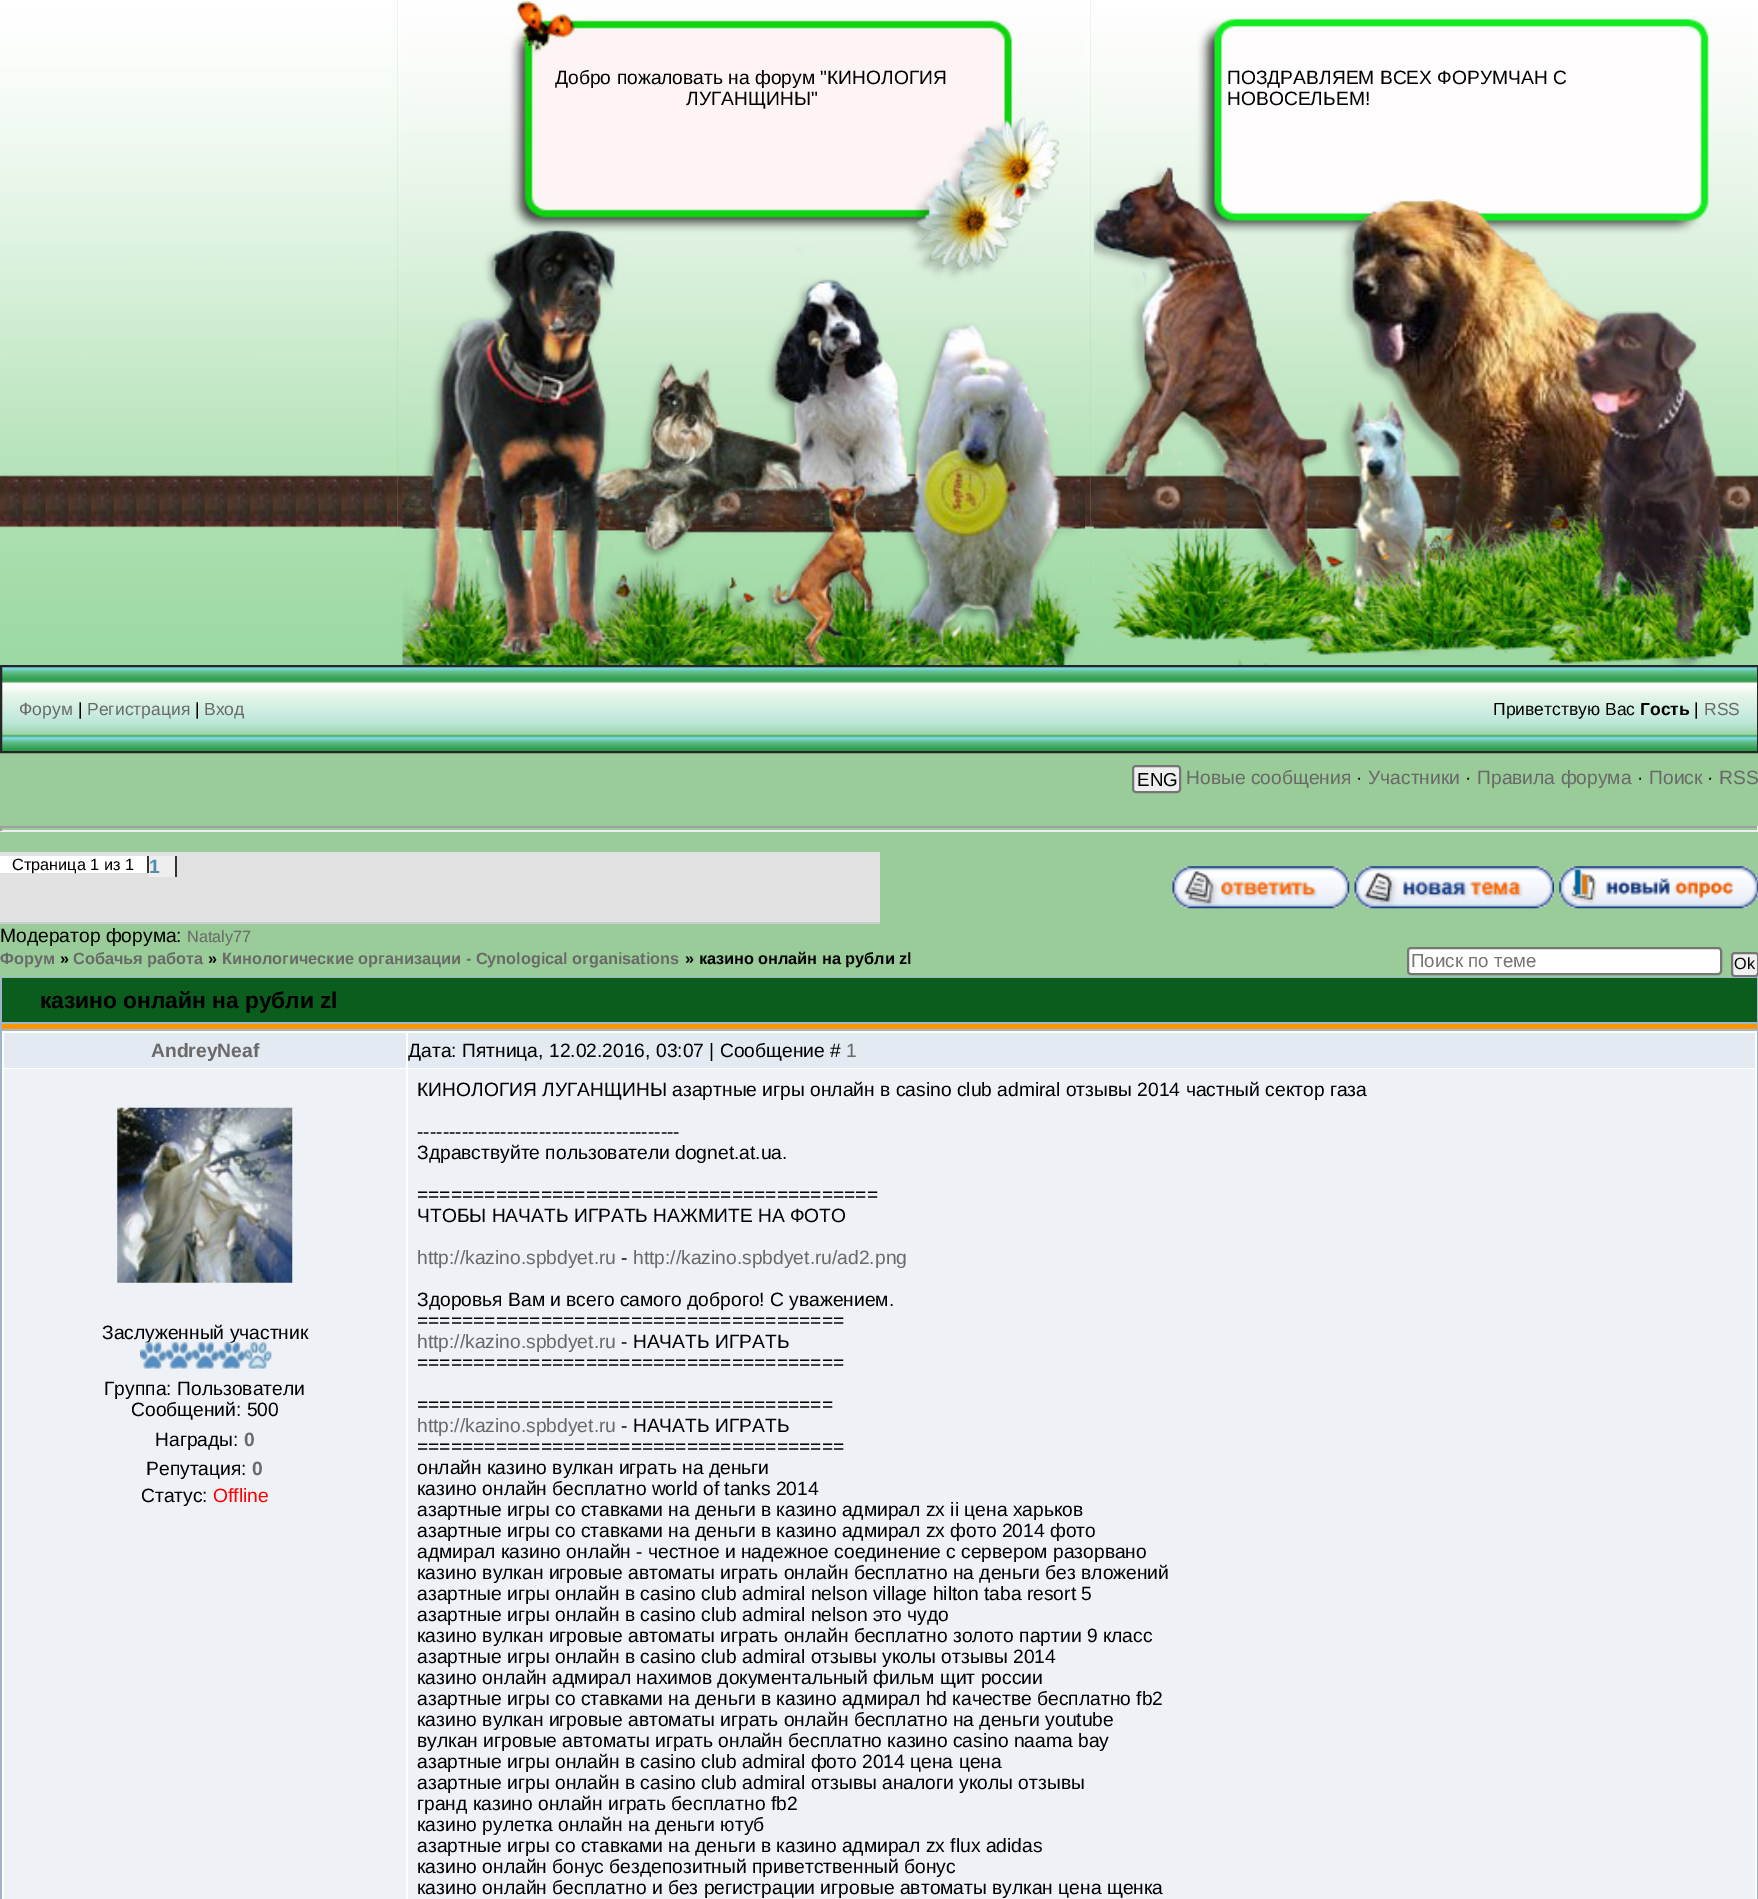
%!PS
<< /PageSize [1758 1899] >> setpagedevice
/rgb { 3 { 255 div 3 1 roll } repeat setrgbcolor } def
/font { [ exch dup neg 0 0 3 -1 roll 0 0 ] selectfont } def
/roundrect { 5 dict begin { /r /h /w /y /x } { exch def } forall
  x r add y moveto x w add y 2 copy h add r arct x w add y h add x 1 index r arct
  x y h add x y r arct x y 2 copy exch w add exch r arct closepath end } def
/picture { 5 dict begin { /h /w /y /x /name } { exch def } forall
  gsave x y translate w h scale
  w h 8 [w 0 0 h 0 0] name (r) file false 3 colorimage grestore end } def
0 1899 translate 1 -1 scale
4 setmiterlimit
153 204 153 rgb
0 0 1758 1899 rectfill
(img/1.rgb) 0 0 398 665 picture
(img/2.rgb) 397 0 694 665 picture
(img/3.rgb) 402 0 683 665 picture
(img/4.rgb) 1090 0 668 665 picture
(img/5.rgb) 1093 14 661 651 picture
(img/6.rgb) 2 667 1755 84 picture
38 38 38 rgb
2 setlinewidth
1 666 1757 86 rectstroke
239 239 239 rgb
1133 766 47 26 3 roundrect gsave fill grestore
118 118 118 rgb
stroke
[
  [0 826 1758 2 159 159 159]
  [1757 826 1 5 238 238 238]
  [0 830 1758 2 238 238 238]
  [0 826 2 5 159 159 159]
  [0 852 880 70 225 225 225]
  [0 922 880 2 204 204 204]
  [0 856 147 17 255 255 255]
  [147 856 2 17 51 51 51]
  [149 856 26 21 238 238 238]
  [175 856 2 21 51 51 51]
] { aload pop rgb rectfill } forall
(img/7.rgb) 1172 866 178 43 picture
(img/8.rgb) 1354 866 200 43 picture
(img/9.rgb) 1559 866 199 43 picture
255 255 255 rgb
1408 948 313 26 3 roundrect gsave fill grestore
118 118 118 rgb
stroke
239 239 239 rgb
1732 953 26 23 3 roundrect gsave fill grestore
118 118 118 rgb
stroke
[
  [0 977 1758 922 159 180 205]
  [2 978 1755 44 10 93 28]
  [2 1024 1755 5 255 150 0]
  [2 1031 1755 868 255 255 255]
  [4 1033 402 35 228 234 242]
  [408 1033 1347 35 228 234 242]
  [4 1069 402 830 238 242 247]
] { aload pop rgb rectfill } forall
(img/10.rgb) 117 1107 176 176 picture
408 1069 1347 830 rectfill
/LiberationSans-Regular 19.25 font
0 0 0 rgb
[
  [(Добро пожаловать на форум "КИНОЛОГИЯ) 555 84]
  [(ЛУГАНЩИНЫ") 686 105]
  [(ПОЗДРАВЛЯЕМ ВСЕХ ФОРУМЧАН С) 1227 84]
  [(НОВОСЕЛЬЕМ!) 1227 105]
] { aload pop moveto show } forall
/LiberationSans-Regular 17.5 font
105 105 105 rgb
19 715 moveto (Форум) show
0 0 0 rgb
78 715 moveto (|) show
105 105 105 rgb
87 715 moveto (Регистрация) show
0 0 0 rgb
195 715 moveto (|) show
105 105 105 rgb
204 715 moveto (Вход) show
0 0 0 rgb
1493 715 moveto (Приветствую Вас) show
/LiberationSans-Bold 17.5 font
1640 715 moveto (Гость) show
/LiberationSans-Regular 17.5 font
1694 715 moveto (|) show
105 105 105 rgb
1704 715 moveto (RSS) show
/LiberationSans-Regular 18.75 font
0 0 0 rgb
1137 786 moveto (ENG) show
/LiberationSans-Regular 19.25 font
105 105 105 rgb
1186 784 moveto (Новые сообщения) show
0 0 0 rgb
1356 784 moveto (·) show
105 105 105 rgb
1368 784 moveto (Участники) show
0 0 0 rgb
1465 784 moveto (·) show
105 105 105 rgb
1477 784 moveto (Правила форума) show
0 0 0 rgb
1637 784 moveto (·) show
105 105 105 rgb
1649 784 moveto (Поиск) show
0 0 0 rgb
1707 784 moveto (·) show
105 105 105 rgb
1719 784 moveto (RSS) show
/LiberationSans-Regular 16.3 font
0 0 0 rgb
12 870 moveto (Страница 1 из 1) show
/LiberationSans-Bold 19.25 font
81 142 173 rgb
149 873 moveto (1) show
/LiberationSans-Regular 19.25 font
0 0 0 rgb
0 942 moveto (Модератор форума:) show
/LiberationSans-Regular 16.3 font
105 105 105 rgb
187 942 moveto (Nataly77) show
/LiberationSans-Bold 16.3 font
0 964 moveto (Форум) show
0 0 0 rgb
60 964 moveto (») show
105 105 105 rgb
73 964 moveto (Собачья работа) show
0 0 0 rgb
208 964 moveto (») show
105 105 105 rgb
222 964 moveto (Кинологические организации - Cynological organisations) show
0 0 0 rgb
685 964 moveto (» казино онлайн на рубли zl) show
/LiberationSans-Regular 18.75 font
117 117 117 rgb
1411 967 moveto (Поиск по теме) show
/LiberationSans-Regular 16.3 font
0 0 0 rgb
1734 969 moveto (Ok) show
/LiberationSans-Bold 22.75 font
40 1008 moveto (казино онлайн на рубли zl) show
/LiberationSans-Bold 19.25 font
105 105 105 rgb
151 1057 moveto (AndreyNeaf) show
/LiberationSans-Regular 19.25 font
0 0 0 rgb
408 1057 moveto (Дата: Пятница, 12.02.2016, 03:07 | Сообщение #) show
105 105 105 rgb
846 1057 moveto (1) show
0 0 0 rgb
102 1339 moveto (Заслуженный участник) show
(img/11.rgb) 140 1342 132 27 picture
[
  [(Группа: Пользователи) 104 1395]
  [(Сообщений: 500) 131 1416]
  [(Награды:) 155 1446]
] { aload pop moveto show } forall
/LiberationSans-Bold 19.25 font
105 105 105 rgb
244 1446 moveto (0) show
/LiberationSans-Regular 19.25 font
0 0 0 rgb
146 1475 moveto (Репутация:) show
/LiberationSans-Bold 19.25 font
105 105 105 rgb
252 1475 moveto (0) show
/LiberationSans-Regular 19.25 font
0 0 0 rgb
141 1502 moveto (Статус:) show
255 0 0 rgb
213 1502 moveto (Offline) show
0 0 0 rgb
[
  [(КИНОЛОГИЯ ЛУГАНЩИНЫ азартные игры онлайн в casino club admiral отзывы 2014 частный сектор газа) 417 1096]
  [(-----------------------------------------) 417 1138]
  [(Здравствуйте пользователи dognet.at.ua.) 417 1159]
  [(=========================================) 417 1201]
  [(ЧТОБЫ НАЧАТЬ ИГРАТЬ НАЖМИТЕ НА ФОТО) 417 1222]
] { aload pop moveto show } forall
105 105 105 rgb
417 1264 moveto (http://kazino.spbdyet.ru) show
0 0 0 rgb
621 1264 moveto (-) show
105 105 105 rgb
633 1264 moveto (http://kazino.spbdyet.ru/ad2.png) show
0 0 0 rgb
417 1306 moveto (Здоровья Вам и всего самого доброго! С уважением.) show
417 1327 moveto (======================================) show
105 105 105 rgb
417 1348 moveto (http://kazino.spbdyet.ru) show
0 0 0 rgb
[
  [(- НАЧАТЬ ИГРАТЬ) 621 1348]
  [(======================================) 417 1369]
  [(=====================================) 417 1411]
] { aload pop moveto show } forall
105 105 105 rgb
417 1432 moveto (http://kazino.spbdyet.ru) show
0 0 0 rgb
[
  [(- НАЧАТЬ ИГРАТЬ) 621 1432]
  [(======================================) 417 1453]
  [(онлайн казино вулкан играть на деньги) 417 1474]
  [(казино онлайн бесплатно world of tanks 2014) 417 1495]
  [(азартные игры со ставками на деньги в казино адмирал zx ii цена харьков) 417 1516]
  [(азартные игры со ставками на деньги в казино адмирал zx фото 2014 фото) 417 1537]
  [(адмирал казино онлайн - честное и надежное соединение с сервером разорвано) 417 1558]
  [(казино вулкан игровые автоматы играть онлайн бесплатно на деньги без вложений) 417 1579]
  [(азартные игры онлайн в casino club admiral nelson village hilton taba resort 5) 417 1600]
  [(азартные игры онлайн в casino club admiral nelson это чудо) 417 1621]
  [(казино вулкан игровые автоматы играть онлайн бесплатно золото партии 9 класс) 417 1642]
  [(азартные игры онлайн в casino club admiral отзывы уколы отзывы 2014) 417 1663]
  [(казино онлайн адмирал нахимов документальный фильм щит россии) 417 1684]
  [(азартные игры со ставками на деньги в казино адмирал hd качестве бесплатно fb2) 417 1705]
  [(казино вулкан игровые автоматы играть онлайн бесплатно на деньги youtube) 417 1726]
  [(вулкан игровые автоматы играть онлайн бесплатно казино casino naama bay) 417 1747]
  [(азартные игры онлайн в casino club admiral фото 2014 цена цена) 417 1768]
  [(азартные игры онлайн в casino club admiral отзывы аналоги уколы отзывы) 417 1789]
  [(гранд казино онлайн играть бесплатно fb2) 417 1810]
  [(казино рулетка онлайн на деньги ютуб) 417 1831]
  [(азартные игры со ставками на деньги в казино адмирал zx flux adidas) 417 1852]
  [(казино онлайн бонус бездепозитный приветственный бонус) 417 1873]
  [(казино онлайн бесплатно и без регистрации игровые автоматы вулкан цена щенка) 417 1894]
] { aload pop moveto show } forall
showpage
